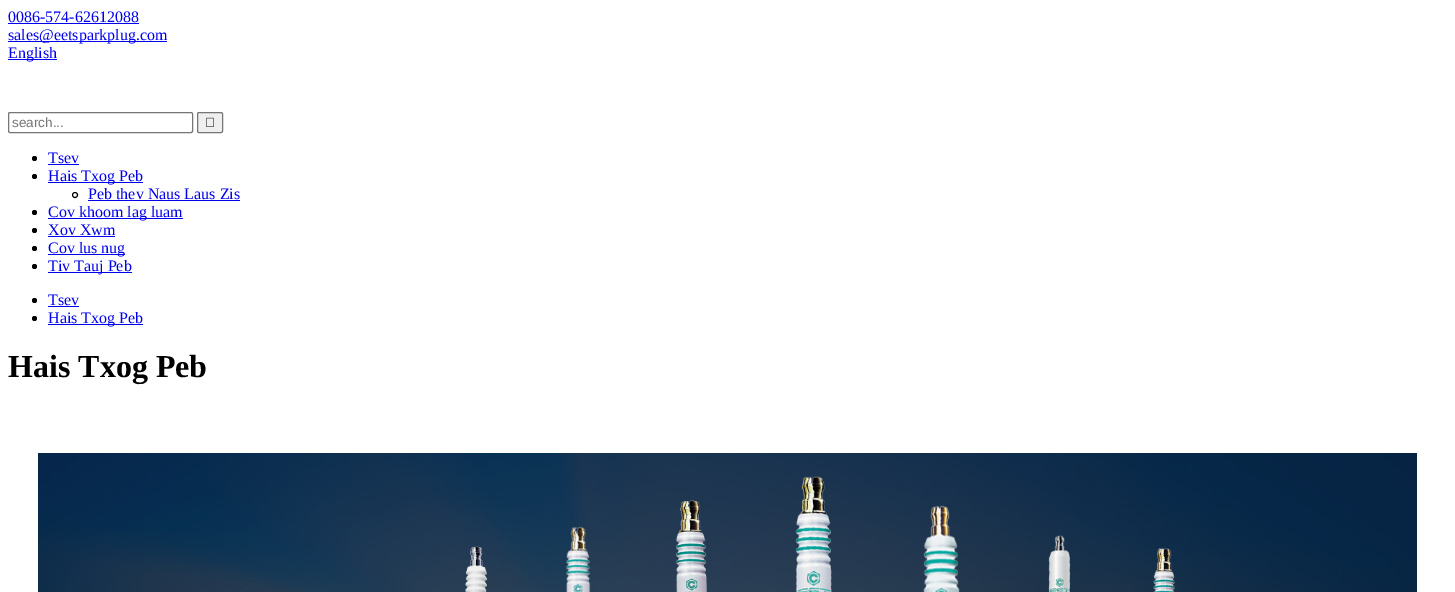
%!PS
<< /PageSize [1455 592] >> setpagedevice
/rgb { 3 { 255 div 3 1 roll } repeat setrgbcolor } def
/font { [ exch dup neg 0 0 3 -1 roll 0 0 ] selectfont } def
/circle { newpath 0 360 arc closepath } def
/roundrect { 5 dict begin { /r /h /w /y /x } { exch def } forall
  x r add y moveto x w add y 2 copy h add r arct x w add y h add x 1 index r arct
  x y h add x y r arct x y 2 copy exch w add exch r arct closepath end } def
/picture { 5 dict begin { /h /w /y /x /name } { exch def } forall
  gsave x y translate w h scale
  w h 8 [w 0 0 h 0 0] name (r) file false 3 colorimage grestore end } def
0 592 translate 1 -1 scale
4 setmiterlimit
255 255 255 rgb
0 0 1455 592 rectfill
[
  [8 23 131 1 0 0 238]
  [8 41 159 1 0 0 238]
  [8 59 49 1 0 0 238]
] { aload pop rgb rectfill } forall
118 118 118 rgb
8.5 112.5 184 20 1.5 roundrect stroke
239 239 239 rgb
197.5 112.5 25 20 1.5 roundrect gsave fill grestore
118 118 118 rgb
stroke
(img/1.rgb) 206 117 8 10 picture
0 0 0 rgb
34.5 158.5 2.5 circle fill
0 0 238 rgb
48 164 31 1 rectfill
0 0 0 rgb
34.5 176.5 2.5 circle fill
0 0 238 rgb
48 182 95 1 rectfill
0 0 0 rgb
75 195 2.5 circle stroke
0 0 238 rgb
88 200 152 1 rectfill
0 0 0 rgb
34.5 212.5 2.5 circle fill
0 0 238 rgb
48 218 135 1 rectfill
0 0 0 rgb
34.5 230.5 2.5 circle fill
0 0 238 rgb
48 236 67 1 rectfill
0 0 0 rgb
34.5 248.5 2.5 circle fill
0 0 238 rgb
48 254 77 1 rectfill
0 0 0 rgb
34.5 266.5 2.5 circle fill
0 0 238 rgb
48 272 84 1 rectfill
0 0 0 rgb
34.5 300.5 2.5 circle fill
0 0 238 rgb
48 306 31 1 rectfill
0 0 0 rgb
34.5 318.5 2.5 circle fill
0 0 238 rgb
48 324 95 1 rectfill
(img/2.rgb) 38 453 1379 139 picture
/LiberationSerif-Regular 16 font
[
  [(0086-574-62612088) 8 22]
  [(sales@eetsparkplug.com) 8 40]
  [(English) 8 58]
] { aload pop moveto show } forall
/LiberationSans-Regular 13.5 font
117 117 117 rgb
12 127 moveto (search...) show
/LiberationSerif-Regular 16 font
0 0 238 rgb
[
  [(Tsev) 48 163]
  [(Hais Txog Peb) 48 181]
  [(Peb thev Naus Laus Zis) 88 199]
  [(Cov khoom lag luam) 48 217]
  [(Xov Xwm) 48 235]
  [(Cov lus nug) 48 253]
  [(Tiv Tauj Peb) 48 271]
  [(Tsev) 48 305]
  [(Hais Txog Peb) 48 323]
] { aload pop moveto show } forall
/LiberationSerif-Bold 32 font
0 0 0 rgb
8 377 moveto (Hais Txog Peb) show
showpage
